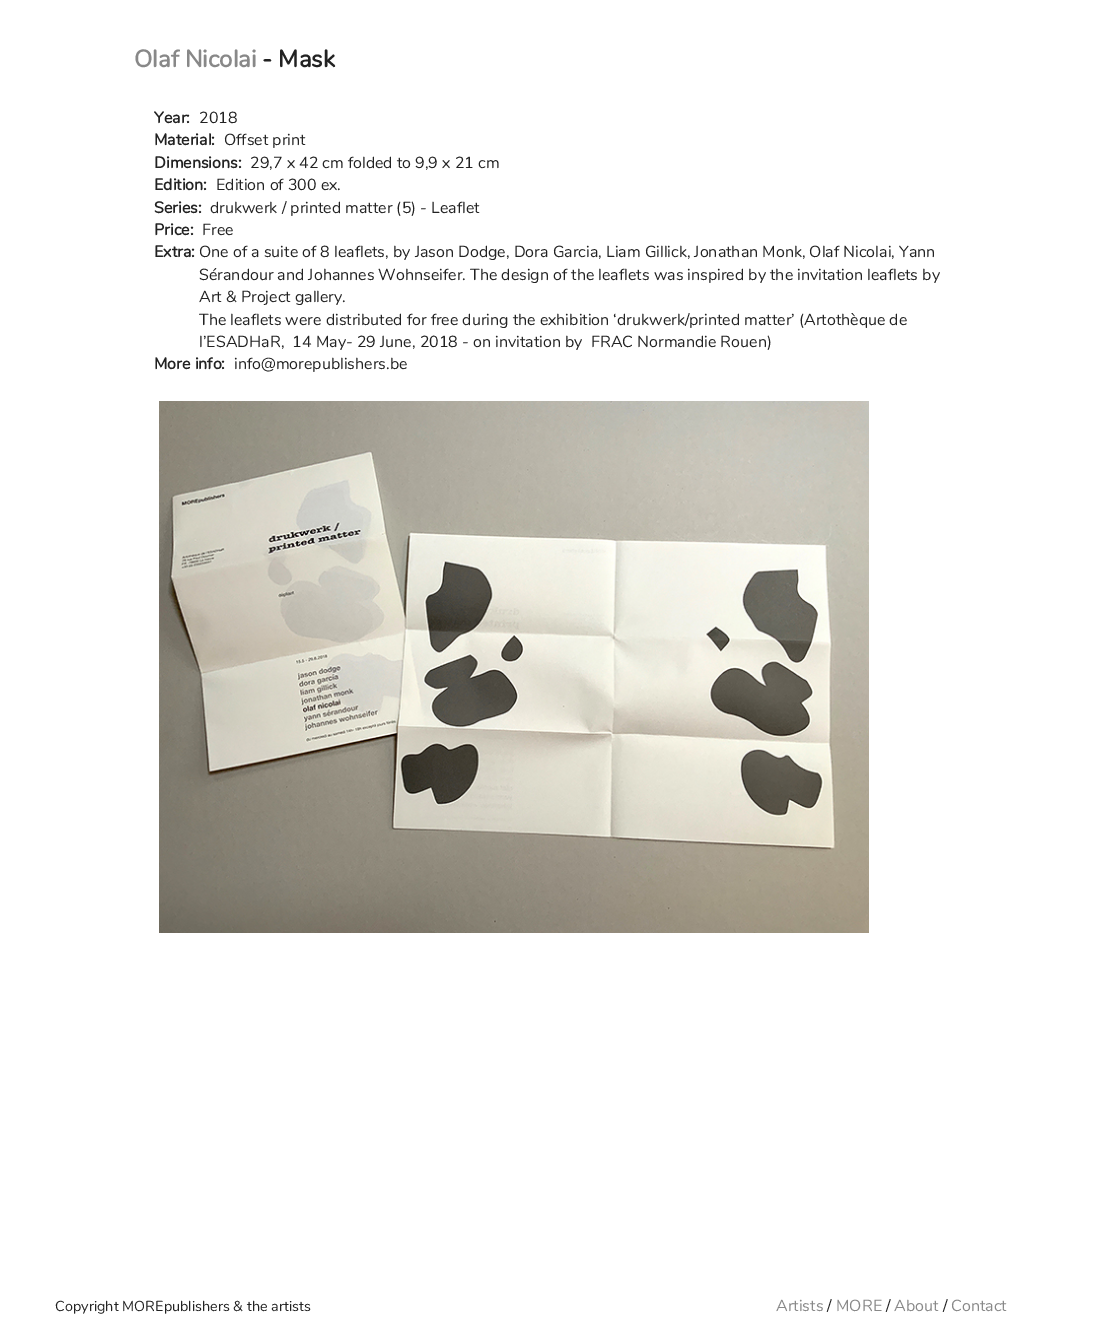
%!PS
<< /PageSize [1104 1339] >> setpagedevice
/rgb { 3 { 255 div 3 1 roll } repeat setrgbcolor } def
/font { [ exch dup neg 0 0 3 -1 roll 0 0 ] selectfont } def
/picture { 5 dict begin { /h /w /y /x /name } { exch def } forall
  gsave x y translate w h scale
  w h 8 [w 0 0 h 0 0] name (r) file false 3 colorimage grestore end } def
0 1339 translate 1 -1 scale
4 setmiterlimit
255 255 255 rgb
0 0 1104 1339 rectfill
(img/1.rgb) 159 401 710 532 picture
/Nunito-Bold 24 font
136 136 136 rgb
134 67 moveto (Olaf Nicolai) show
34 34 34 rgb
262 67 moveto (- Mask) show
/Nunito-Bold 16 font
154 123 moveto (Year:) show
/Nunito-Regular 16 font
199 123 moveto (2018) show
/Nunito-Bold 16 font
154 145 moveto (Material:) show
/Nunito-Regular 16 font
224 145 moveto (Offset print) show
/Nunito-Bold 16 font
154 168 moveto (Dimensions:) show
/Nunito-Regular 16 font
250 168 moveto (29,7 x 42 cm folded to 9,9 x 21 cm) show
/Nunito-Bold 16 font
154 190 moveto (Edition:) show
/Nunito-Regular 16 font
216 190 moveto (Edition of 300 ex.) show
/Nunito-Bold 16 font
154 213 moveto (Series:) show
/Nunito-Regular 16 font
210 213 moveto (drukwerk / printed matter \(5\) - Leaflet) show
/Nunito-Bold 16 font
154 235 moveto (Price:) show
/Nunito-Regular 16 font
202 235 moveto (Free) show
/Nunito-Bold 16 font
154 257 moveto (Extra:) show
/Nunito-Regular 16 font
[
  [(One of a suite of 8 leaflets, by Jason Dodge, Dora Garcia, Liam Gillick, Jonathan Monk, Olaf Nicolai, Yann) 199 257]
  [(Sérandour and Johannes Wohnseifer. The design of the leaflets was inspired by the invitation leaflets by) 199 280]
  [(Art & Project gallery.) 199 302]
  [(The leaflets were distributed for free during the exhibition ‘drukwerk/printed matter’ \(Artothèque de) 199 325]
  [(l’ESADHaR,  14 May- 29 June, 2018 - on invitation by  FRAC Normandie Rouen\)) 199 347]
] { aload pop moveto show } forall
/Nunito-Bold 16 font
154 369 moveto (More info:) show
/Nunito-Regular 16 font
234 369 moveto (info@morepublishers.be) show
/Nunito-Regular 14.4 font
55 1311 moveto (Copyright MOREpublishers & the artists) show
/Nunito-Regular 16 font
136 136 136 rgb
776 1311 moveto (Artists) show
34 34 34 rgb
827 1311 moveto (/) show
136 136 136 rgb
836 1311 moveto (MORE) show
34 34 34 rgb
886 1311 moveto (/) show
136 136 136 rgb
894 1311 moveto (About) show
34 34 34 rgb
943 1311 moveto (/) show
136 136 136 rgb
951 1311 moveto (Contact) show
showpage
